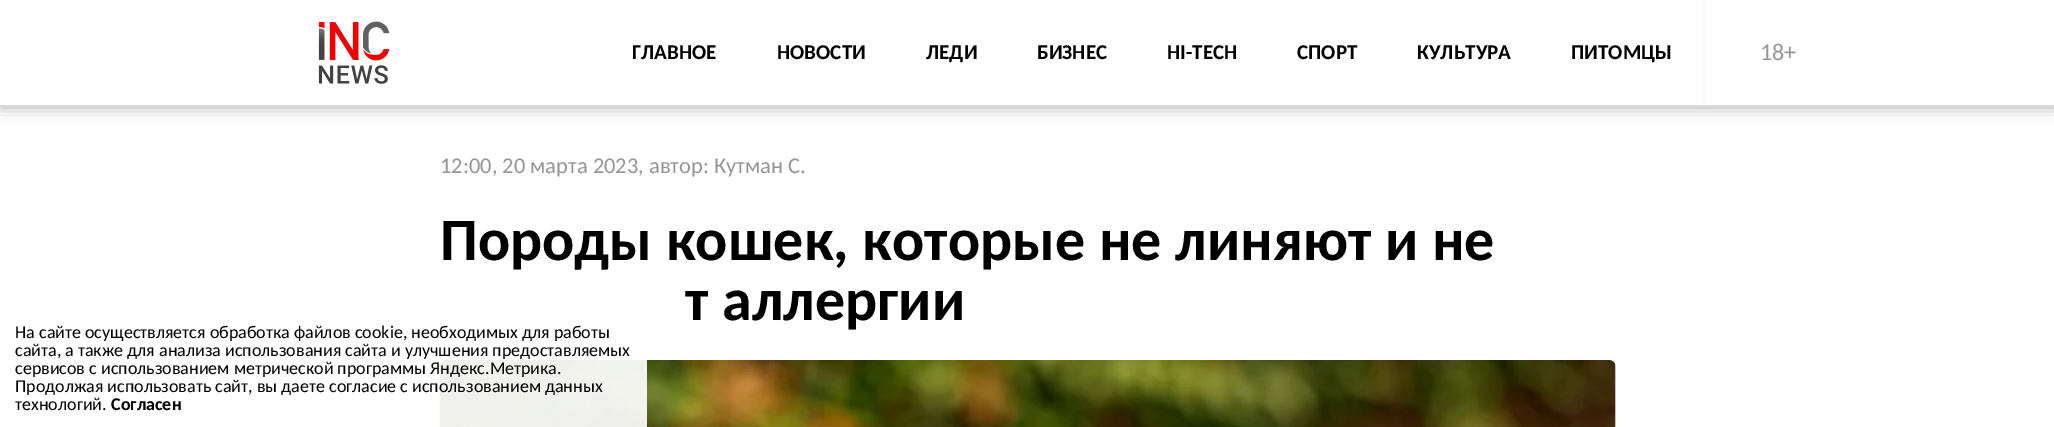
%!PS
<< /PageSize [2054 427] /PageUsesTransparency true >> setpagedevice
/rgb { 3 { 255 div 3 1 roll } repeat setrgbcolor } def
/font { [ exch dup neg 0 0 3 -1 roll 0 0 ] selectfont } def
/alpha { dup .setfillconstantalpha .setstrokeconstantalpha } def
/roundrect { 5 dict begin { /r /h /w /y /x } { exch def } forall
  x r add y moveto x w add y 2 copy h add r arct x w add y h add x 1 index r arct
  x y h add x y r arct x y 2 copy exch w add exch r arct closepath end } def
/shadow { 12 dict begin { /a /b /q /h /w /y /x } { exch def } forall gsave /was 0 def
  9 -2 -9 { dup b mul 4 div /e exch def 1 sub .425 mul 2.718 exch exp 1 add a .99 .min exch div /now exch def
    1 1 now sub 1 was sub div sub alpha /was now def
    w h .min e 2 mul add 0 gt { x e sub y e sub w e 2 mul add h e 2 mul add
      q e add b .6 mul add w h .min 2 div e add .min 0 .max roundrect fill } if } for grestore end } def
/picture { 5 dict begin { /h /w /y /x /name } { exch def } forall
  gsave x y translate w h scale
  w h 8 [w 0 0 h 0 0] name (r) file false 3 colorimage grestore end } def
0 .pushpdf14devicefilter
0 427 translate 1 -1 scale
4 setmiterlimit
255 255 255 rgb
0 0 2054 427 rectfill
0 0 0 rgb
0 0 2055 107 0 7.5 0.33 shadow
255 255 255 rgb
0 0 2054 105 rectfill
217 217 217 rgb
0 105 2054 2 rectfill
(img/1.rgb) 318 21 72 63 picture
249 249 249 rgb
1703 0 2 105 rectfill
243 243 243 rgb
440 360 1176 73 6 roundrect fill
(img/2.rgb) 439 360 1177 67 picture
0.92 alpha
255 255 255 rgb
439 360 208 67 rectfill
/Carlito-Bold 21 font
1 alpha
0 0 0 rgb
[
  [(ГЛАВНОЕ) 632 59]
  [(НОВОСТИ) 777 59]
  [(ЛЕДИ) 926 59]
  [(БИЗНЕС) 1037 59]
  [(HI-TECH) 1167 59]
  [(СПОРТ) 1297 59]
  [(КУЛЬТУРА) 1417 59]
  [(ПИТОМЦЫ) 1571 59]
] { aload pop moveto show } forall
/Carlito-Regular 24 font
150 150 150 rgb
1760 60 moveto (18+) show
/Carlito-Regular 22.5 font
440 173 moveto (12:00, 20 марта 2023, автор: Кутман С.) show
/Carlito-Bold 60 font
0 0 0 rgb
440 260 moveto (Породы кошек, которые не линяют и не) show
685 320 moveto (т аллергии) show
/Carlito-Regular 18 font
[
  [(На сайте осуществляется обработка файлов cookie, необходимых для работы) 15 338]
  [(сайта, а также для анализа использования сайта и улучшения предоставляемых) 15 356]
  [(сервисов с использованием метрической программы Яндекс.Метрика.) 15 374]
  [(Продолжая использовать сайт, вы даете согласие с использованием данных) 15 392]
  [(технологий.) 15 410]
] { aload pop moveto show } forall
/Carlito-Bold 18 font
111 410 moveto (Согласен) show
.poppdf14devicefilter showpage
